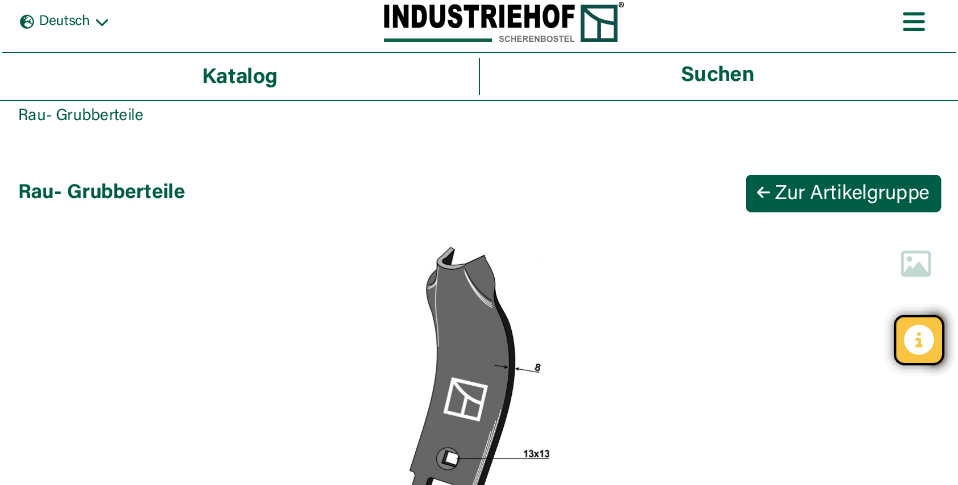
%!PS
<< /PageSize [958 485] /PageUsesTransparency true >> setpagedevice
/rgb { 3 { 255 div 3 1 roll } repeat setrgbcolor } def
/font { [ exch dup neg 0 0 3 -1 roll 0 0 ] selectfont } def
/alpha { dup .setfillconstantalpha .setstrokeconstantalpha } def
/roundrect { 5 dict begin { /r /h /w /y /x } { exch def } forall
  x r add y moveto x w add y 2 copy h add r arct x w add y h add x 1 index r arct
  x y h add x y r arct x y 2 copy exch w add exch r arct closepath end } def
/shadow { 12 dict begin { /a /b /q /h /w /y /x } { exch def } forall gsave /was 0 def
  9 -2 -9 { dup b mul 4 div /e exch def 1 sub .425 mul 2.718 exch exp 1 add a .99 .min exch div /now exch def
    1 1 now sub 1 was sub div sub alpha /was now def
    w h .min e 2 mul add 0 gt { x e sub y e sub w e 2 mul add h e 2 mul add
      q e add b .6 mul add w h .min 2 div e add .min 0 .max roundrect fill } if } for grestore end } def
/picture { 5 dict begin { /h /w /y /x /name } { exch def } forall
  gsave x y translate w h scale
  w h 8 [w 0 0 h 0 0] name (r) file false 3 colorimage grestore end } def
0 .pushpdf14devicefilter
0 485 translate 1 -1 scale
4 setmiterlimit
255 255 255 rgb
0 0 958 485 rectfill
0 93 69 rgb
0 100 958 1 rectfill
(img/1.rgb) 20 14 14 15 picture
(img/2.rgb) 96 19 12 7 picture
(img/3.rgb) 384 2 240 40 picture
(img/4.rgb) 903 12 22 19 picture
2 52 954 1 rectfill
479 58 1 37 rectfill
746.5 175.5 194 36 4.5 roundrect gsave fill grestore
stroke
(img/5.rgb) 757 186 14 12 picture
(img/6.rgb) 409 246 141 239 picture
(img/7.rgb) 901 250 30 27 picture
0 0 0 rgb
928 315 16 50 8 5 0.6 shadow
248 196 66 rgb
928 315 16 50 8 roundrect fill
0 0 0 rgb
894 315 50 50 10 5 0.6 shadow
248 196 66 rgb
895 316 48 48 9 roundrect gsave fill grestore
0 0 0 rgb
2 setlinewidth
stroke
(img/8.rgb) 904 324 30 31 picture
/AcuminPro-Regular 14 font
0 93 69 rgb
39 25 moveto (Deutsch) show
/AcuminPro-Bold 21 font
202 83 moveto (Katalog) show
681 81 moveto (Suchen) show
/AcuminPro-Regular 16 font
18 120 moveto (Rau- Grubberteile) show
/AcuminPro-Bold 20 font
18 198 moveto (Rau- Grubberteile) show
/AcuminPro-Regular 20 font
255 255 255 rgb
775 199 moveto (Zur Artikelgruppe) show
.poppdf14devicefilter showpage
